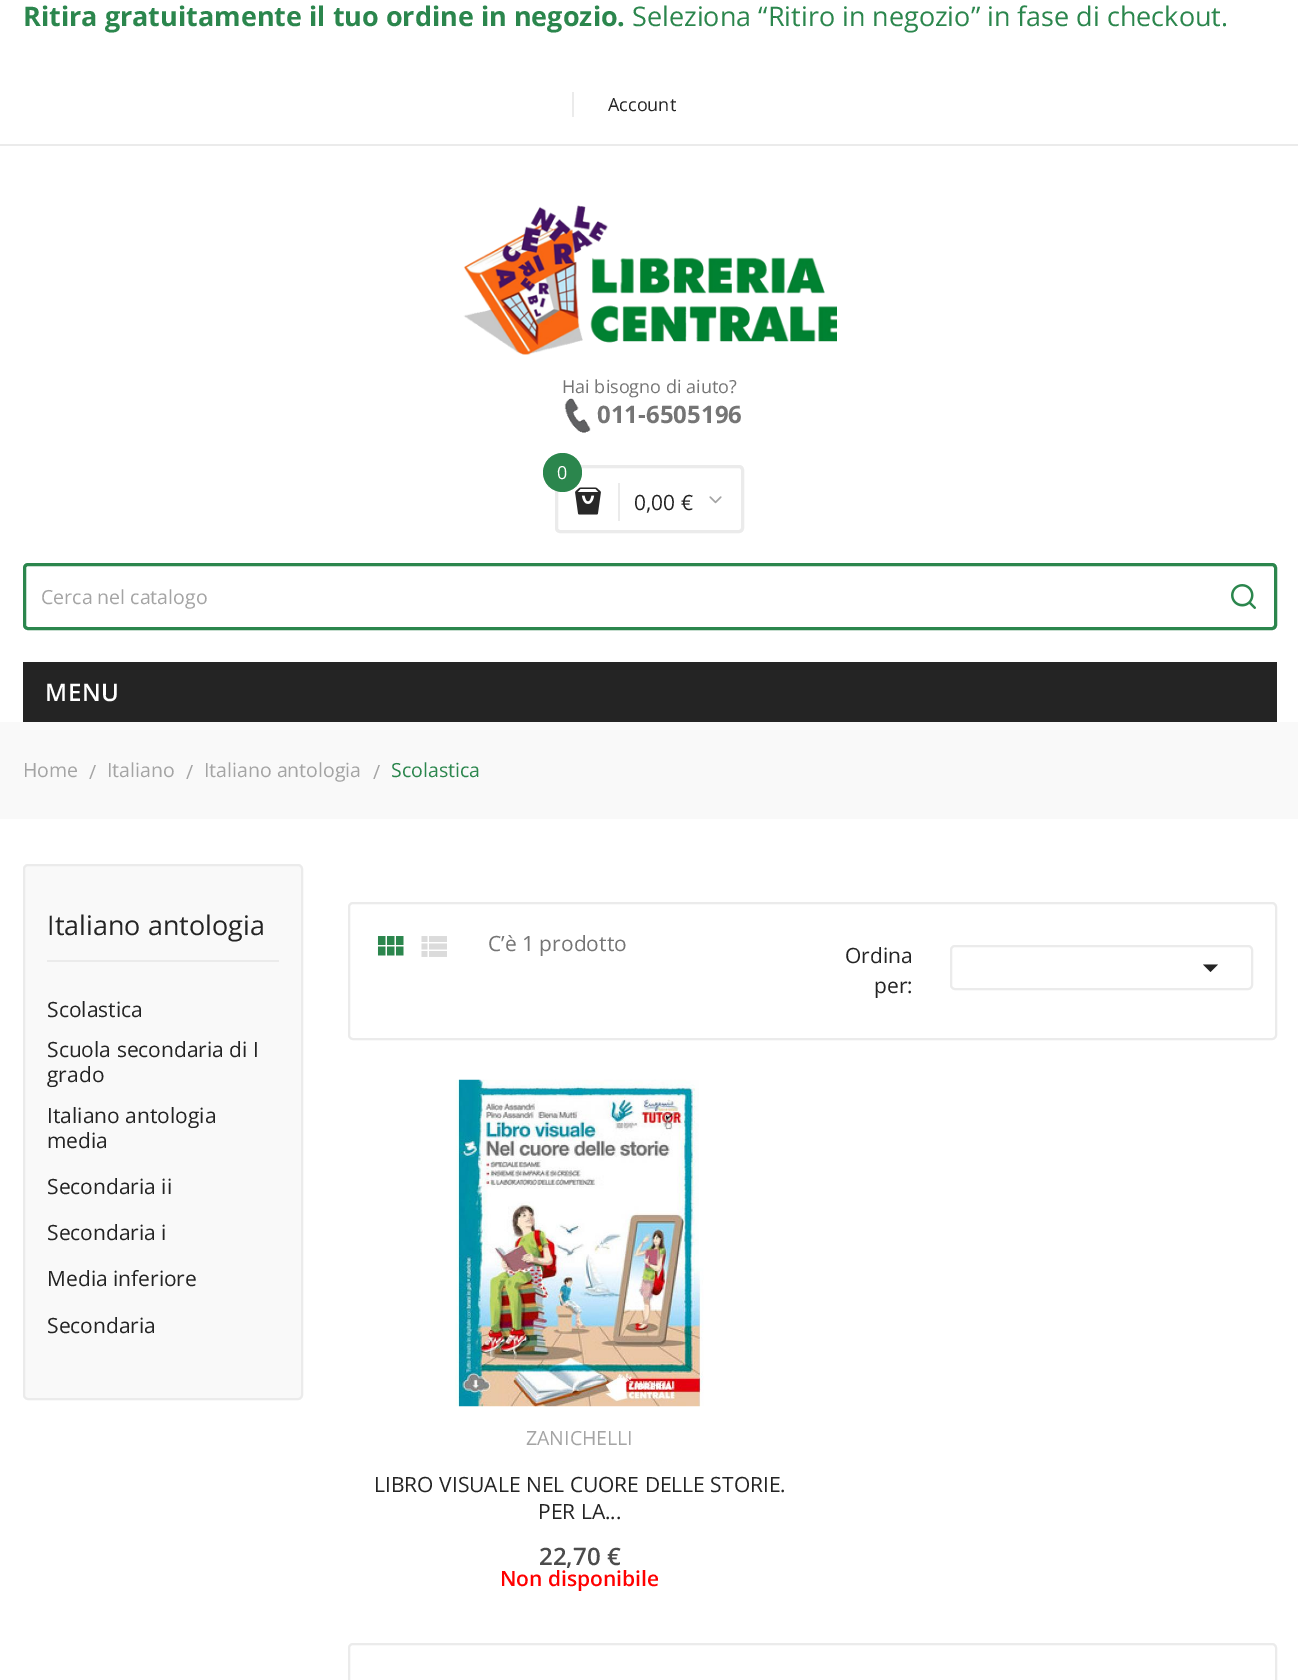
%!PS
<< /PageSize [1298 1680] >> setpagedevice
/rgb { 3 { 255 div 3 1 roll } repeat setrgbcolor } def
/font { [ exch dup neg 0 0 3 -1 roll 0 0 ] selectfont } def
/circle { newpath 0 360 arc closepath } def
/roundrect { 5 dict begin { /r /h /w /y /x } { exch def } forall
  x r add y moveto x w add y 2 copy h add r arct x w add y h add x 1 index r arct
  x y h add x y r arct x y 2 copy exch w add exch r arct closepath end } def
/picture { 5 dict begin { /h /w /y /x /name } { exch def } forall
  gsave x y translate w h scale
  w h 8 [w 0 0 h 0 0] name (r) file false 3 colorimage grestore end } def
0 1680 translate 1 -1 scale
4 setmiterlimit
255 255 255 rgb
0 0 1298 1680 rectfill
235 235 235 rgb
0 144 1298 2 rectfill
572 92 2 25 rectfill
(img/1.rgb) 463 205 374 150 picture
(img/2.rgb) 564 398 27 35 picture
3 setlinewidth
556.5 466.5 186 65 3.5 roundrect stroke
(img/3.rgb) 575 487 26 28 picture
43 134 77 rgb
562.5 472.5 19.5 circle fill
235 235 235 rgb
618 483 2 38 rectfill
(img/4.rgb) 709 496 13 8 picture
43 134 77 rgb
24.5 564.5 1251 64 3.5 roundrect stroke
(img/5.rgb) 1231 584 25 25 picture
36 36 36 rgb
23 662 1254 60 rectfill
249 249 249 rgb
0 722 1298 97 rectfill
24 865 278 534 4 roundrect gsave fill grestore
235 235 235 rgb
2 setlinewidth
stroke
47 960 232 2 rectfill
349 903 927 136 4 roundrect stroke
(img/6.rgb) 377 936 27 20 picture
(img/7.rgb) 421 936 26 21 picture
951 946 301 43 4 roundrect stroke
36 36 36 rgb
1203 964.5 moveto 1218 964.5 lineto 1210.5 972 lineto closepath fill
(img/8.rgb) 455 1079 249 328 picture
235 235 235 rgb
349 1644 927 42 4 roundrect stroke
/OpenSans-Bold 27 font
43 134 77 rgb
23 26 moveto (Ritira gratuitamente il tuo ordine in negozio.) show
/OpenSans-Regular 27 font
632 26 moveto (Seleziona “Ritiro in negozio” in fase di checkout.) show
/OpenSans-Regular 18 font
36 36 36 rgb
608 111 moveto (Account) show
117 117 117 rgb
562 393 moveto (Hai bisogno di aiuto?) show
/OpenSans-Bold 24 font
597 423 moveto (011-6505196) show
/OpenSans-Regular 18 font
255 255 255 rgb
557 479 moveto (0) show
/OpenSans-Regular 21 font
36 36 36 rgb
634 510 moveto (0,00 €) show
/OpenSans-Regular 19.5 font
164 164 164 rgb
41 604 moveto (Cerca nel catalogo) show
/OpenSans-SemiBold 24 font
255 255 255 rgb
45 701 moveto 0.5 0 (MENU) ashow
/OpenSans-Regular 19.5 font
164 164 164 rgb
[
  [(Home) 23 777]
  [(/) 89 779]
  [(Italiano) 107 777]
  [(/) 186 779]
  [(Italiano antologia) 204 777]
  [(/) 373 779]
] { aload pop moveto show } forall
43 134 77 rgb
391 777 moveto (Scolastica) show
/OpenSans-Regular 27 font
36 36 36 rgb
47 935 moveto (Italiano antologia) show
/OpenSans-Regular 21 font
[
  [(Scolastica) 47 1017]
  [(Scuola secondaria di I) 47 1057]
  [(grado) 47 1082]
  [(Italiano antologia) 47 1123]
  [(media) 47 1148]
  [(Secondaria ii) 47 1194]
  [(Secondaria i) 47 1240]
  [(Media inferiore) 47 1286]
  [(Secondaria) 47 1333]
] { aload pop moveto show } forall
117 117 117 rgb
488 951 moveto (C’è 1 prodotto) show
36 36 36 rgb
845 963 moveto (Ordina) show
874 993 moveto (per:) show
/OpenSans-Regular 19.5 font
164 164 164 rgb
526 1445 moveto (ZANICHELLI) show
/OpenSans-Regular 21 font
36 36 36 rgb
374 1492 moveto (LIBRO VISUALE NEL CUORE DELLE STORIE.) show
538 1519 moveto (PER LA...) show
/OpenSans-SemiBold 24 font
76 76 76 rgb
539 1565 moveto (22,70 €) show
/OpenSans-SemiBold 21 font
255 0 0 rgb
500 1586 moveto (Non disponibile) show
showpage
